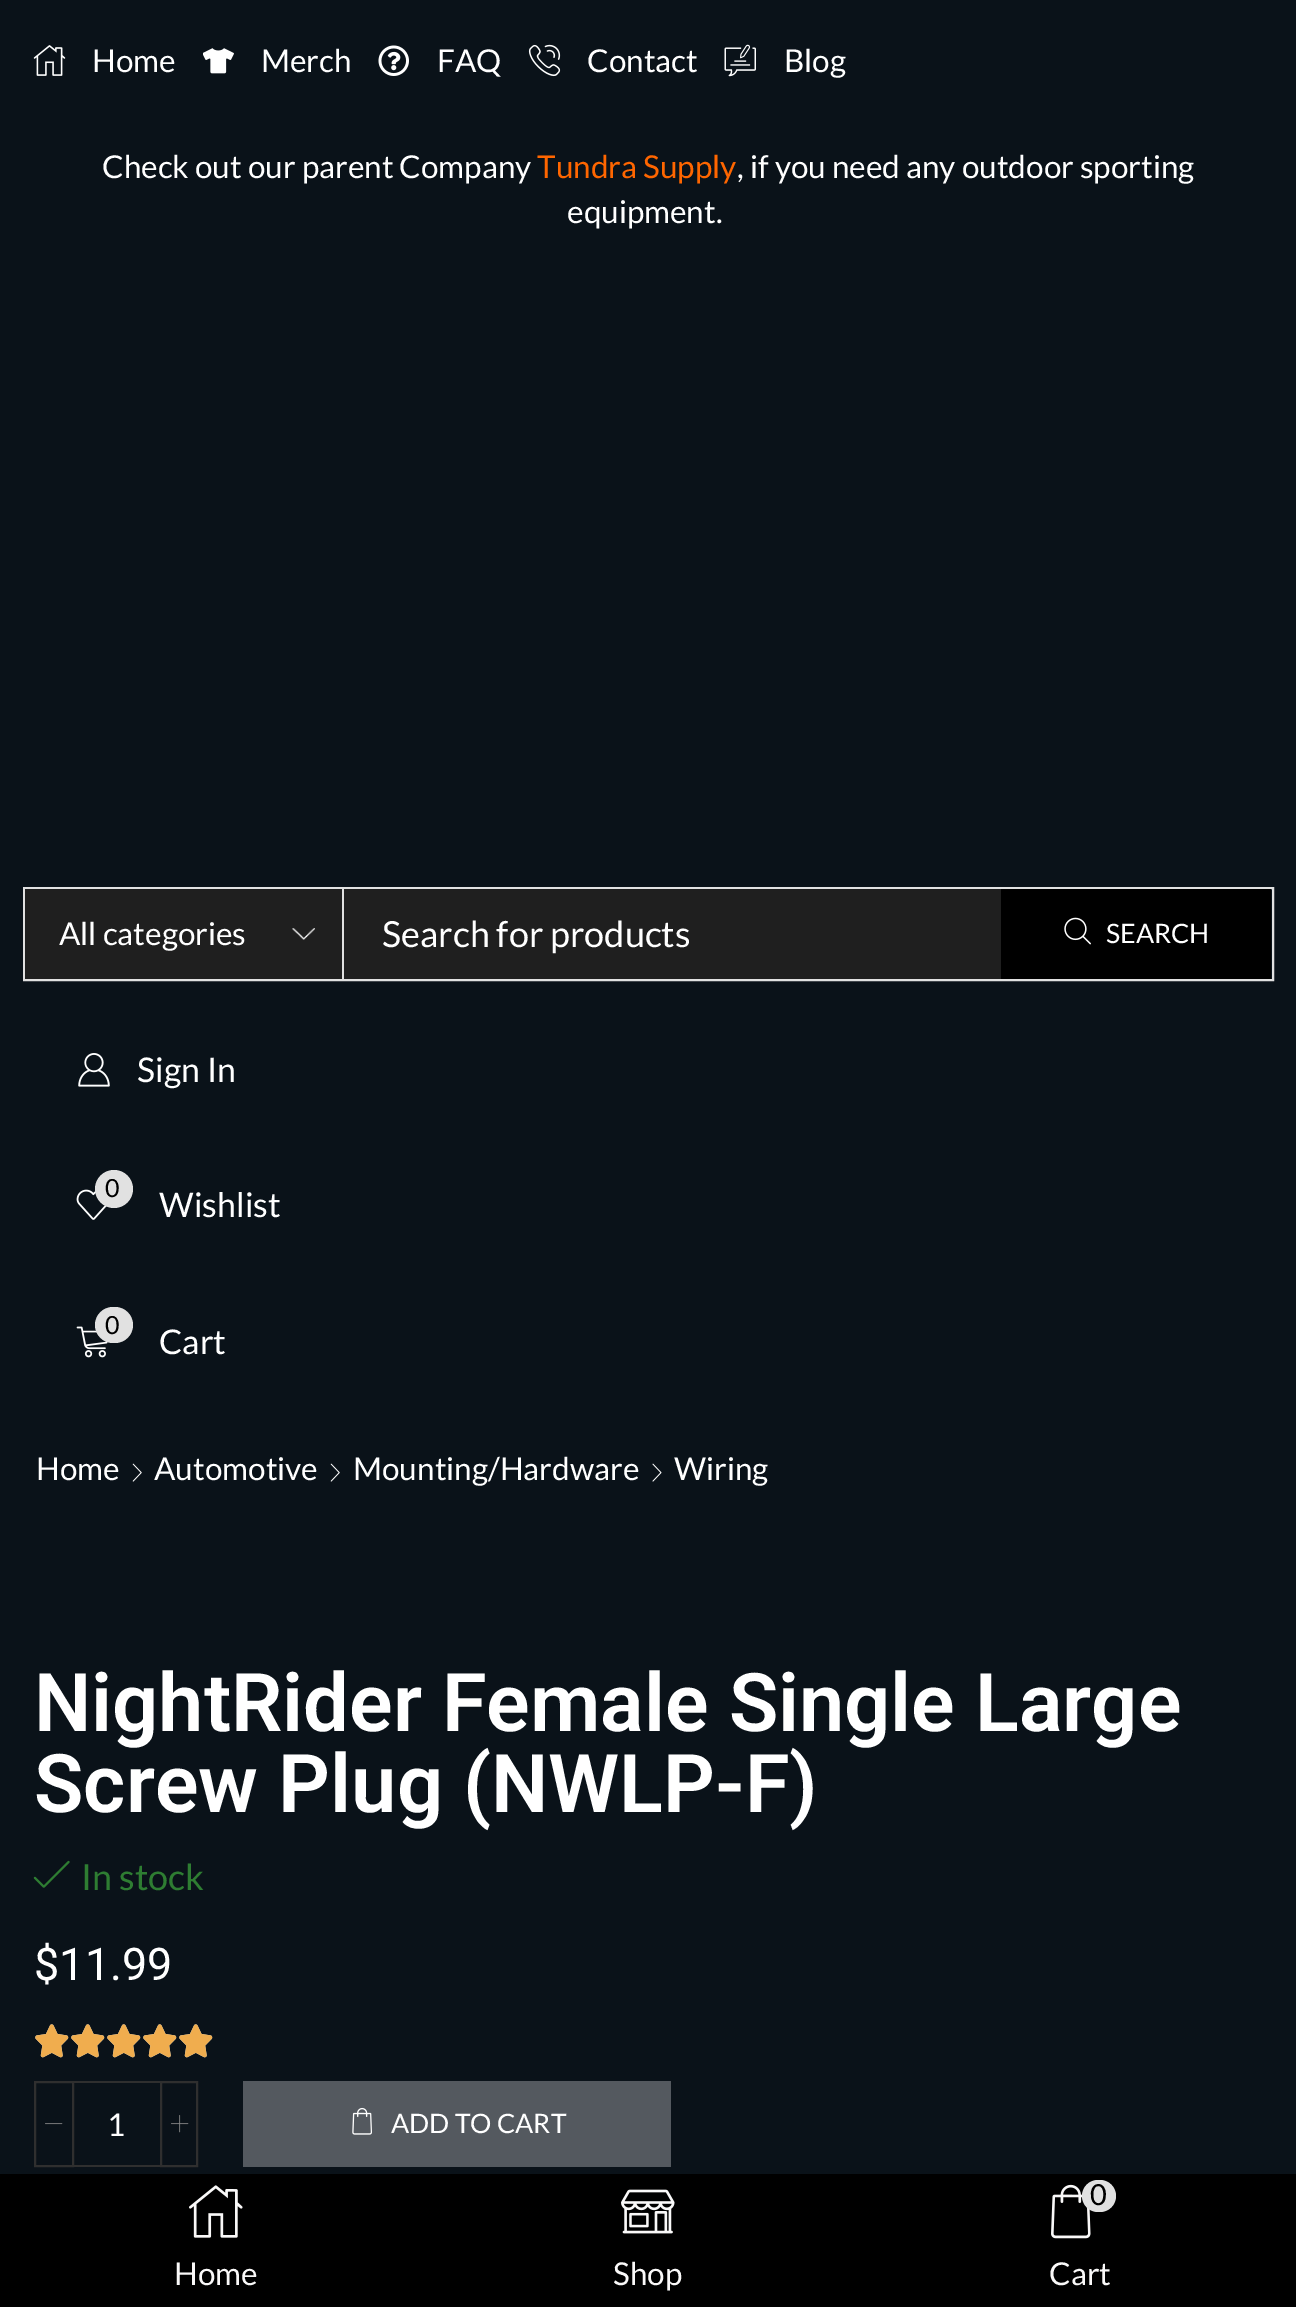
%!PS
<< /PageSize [1296 2307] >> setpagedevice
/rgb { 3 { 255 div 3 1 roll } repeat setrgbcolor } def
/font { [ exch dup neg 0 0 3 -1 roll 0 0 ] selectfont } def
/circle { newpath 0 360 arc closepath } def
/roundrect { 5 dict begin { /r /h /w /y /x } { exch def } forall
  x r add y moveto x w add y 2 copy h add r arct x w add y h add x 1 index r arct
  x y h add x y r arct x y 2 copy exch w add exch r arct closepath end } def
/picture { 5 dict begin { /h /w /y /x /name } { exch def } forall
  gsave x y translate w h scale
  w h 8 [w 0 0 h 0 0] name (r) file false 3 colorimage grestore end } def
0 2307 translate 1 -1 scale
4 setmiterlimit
10 18 25 rgb
0 0 1296 2307 rectfill
(img/1.rgb) 33 45 33 31 picture
(img/2.rgb) 203 48 31 26 picture
(img/3.rgb) 378 45 31 31 picture
(img/4.rgb) 528 44 33 33 picture
(img/5.rgb) 724 44 32 33 picture
225 225 225 rgb
2 setlinewidth
24 888 1249 92 rectstroke
31 31 31 rgb
25 889 317 90 rectfill
(img/6.rgb) 292 928 23 12 picture
[
  [342 889 2 90 225 225 225]
  [344 889 657 90 31 31 31]
  [1001 889 270 90 0 0 0]
] { aload pop rgb rectfill } forall
(img/7.rgb) 1064 917 27 28 picture
(img/8.rgb) 78 1053 32 34 picture
(img/9.rgb) 76 1189 31 31 picture
225 225 225 rgb
114 1189 19 circle fill
(img/10.rgb) 76 1326 32 32 picture
95 1307 38 36 18 roundrect fill
(img/11.rgb) 132 1463 10 19 picture
(img/11.rgb) 330 1463 10 19 picture
(img/12.rgb) 652 1463 10 19 picture
(img/13.rgb) 33 1860 37 28 picture
(img/14.rgb) 35 2024 34 34 picture
(img/15.rgb) 35 2024 34 34 picture
(img/14.rgb) 71 2024 34 34 picture
(img/15.rgb) 71 2024 34 34 picture
(img/14.rgb) 107 2024 34 34 picture
(img/15.rgb) 107 2024 34 34 picture
(img/14.rgb) 143 2024 34 34 picture
(img/15.rgb) 143 2024 34 34 picture
(img/14.rgb) 179 2024 34 34 picture
(img/15.rgb) 179 2024 34 34 picture
47 47 47 rgb
35 2082 38 84 rectstroke
(img/16.rgb) 45 2123 18 2 picture
74 2081 86 2 rectfill
74 2165 86 2 rectfill
161 2082 36 84 rectstroke
(img/17.rgb) 171 2115 18 18 picture
84 89 95 rgb
243 2081 428 86 rectfill
(img/18.rgb) 352 2107 20 28 picture
0 0 0 rgb
0 2174 1296 133 rectfill
(img/19.rgb) 189 2185 54 53 picture
(img/20.rgb) 621 2189 54 45 picture
(img/21.rgb) 1051 2184 40 55 picture
225 225 225 rgb
1082 2180 34 32 16 roundrect fill
/Lato-Regular 31.5 font
255 255 255 rgb
[
  [(Home) 92 72]
  [(Merch) 261 72]
  [(FAQ) 437 72]
  [(Contact) 587 72]
  [(Blog) 784 72]
  [(Check out our parent Company) 102 178]
] { aload pop moveto show } forall
255 102 0 rgb
537 178 moveto (Tundra Supply) show
255 255 255 rgb
[
  [(, if you need any outdoor sporting) 737 178]
  [(equipment.) 567 223]
  [(All categories) 59 945]
] { aload pop moveto show } forall
/Lato-Regular 36 font
382 947 moveto (Search for products) show
/Lato-Regular 26.75 font
1106 943 moveto (SEARCH) show
/Lato-Regular 34 font
137 1082 moveto (Sign In) show
/Lato-Regular 25 font
0 0 0 rgb
105 1197 moveto (0) show
/Lato-Regular 34 font
255 255 255 rgb
159 1217 moveto (Wishlist) show
/Lato-Regular 25 font
0 0 0 rgb
105 1334 moveto (0) show
/Lato-Regular 34 font
255 255 255 rgb
159 1354 moveto (Cart) show
/Lato-Regular 31.5 font
[
  [(Home) 36 1480]
  [(Automotive) 154 1480]
  [(Mounting/Hardware) 353 1480]
  [(Wiring) 674 1480]
] { aload pop moveto show } forall
/Roboto-SemiBold 81 font
34 1731 moveto (NightRider Female Single Large) show
34 1812 moveto (Screw Plug \(NWLP-F\)) show
/Lato-Regular 36 font
46 125 50 rgb
81 1890 moveto (In stock) show
/Roboto-Regular 45 font
255 255 255 rgb
34 1980 moveto ($11.99) show
/Lato-Regular 31.5 font
107 2136 moveto (1) show
/Lato-Regular 26.75 font
391 2133 moveto (ADD TO CART) show
/Lato-Regular 31.5 font
250 249 249 rgb
174 2285 moveto (Home) show
613 2285 moveto (Shop) show
/Lato-Regular 29 font
0 0 0 rgb
1090 2205 moveto (0) show
/Lato-Regular 31.5 font
250 249 249 rgb
1049 2285 moveto (Cart) show
showpage
